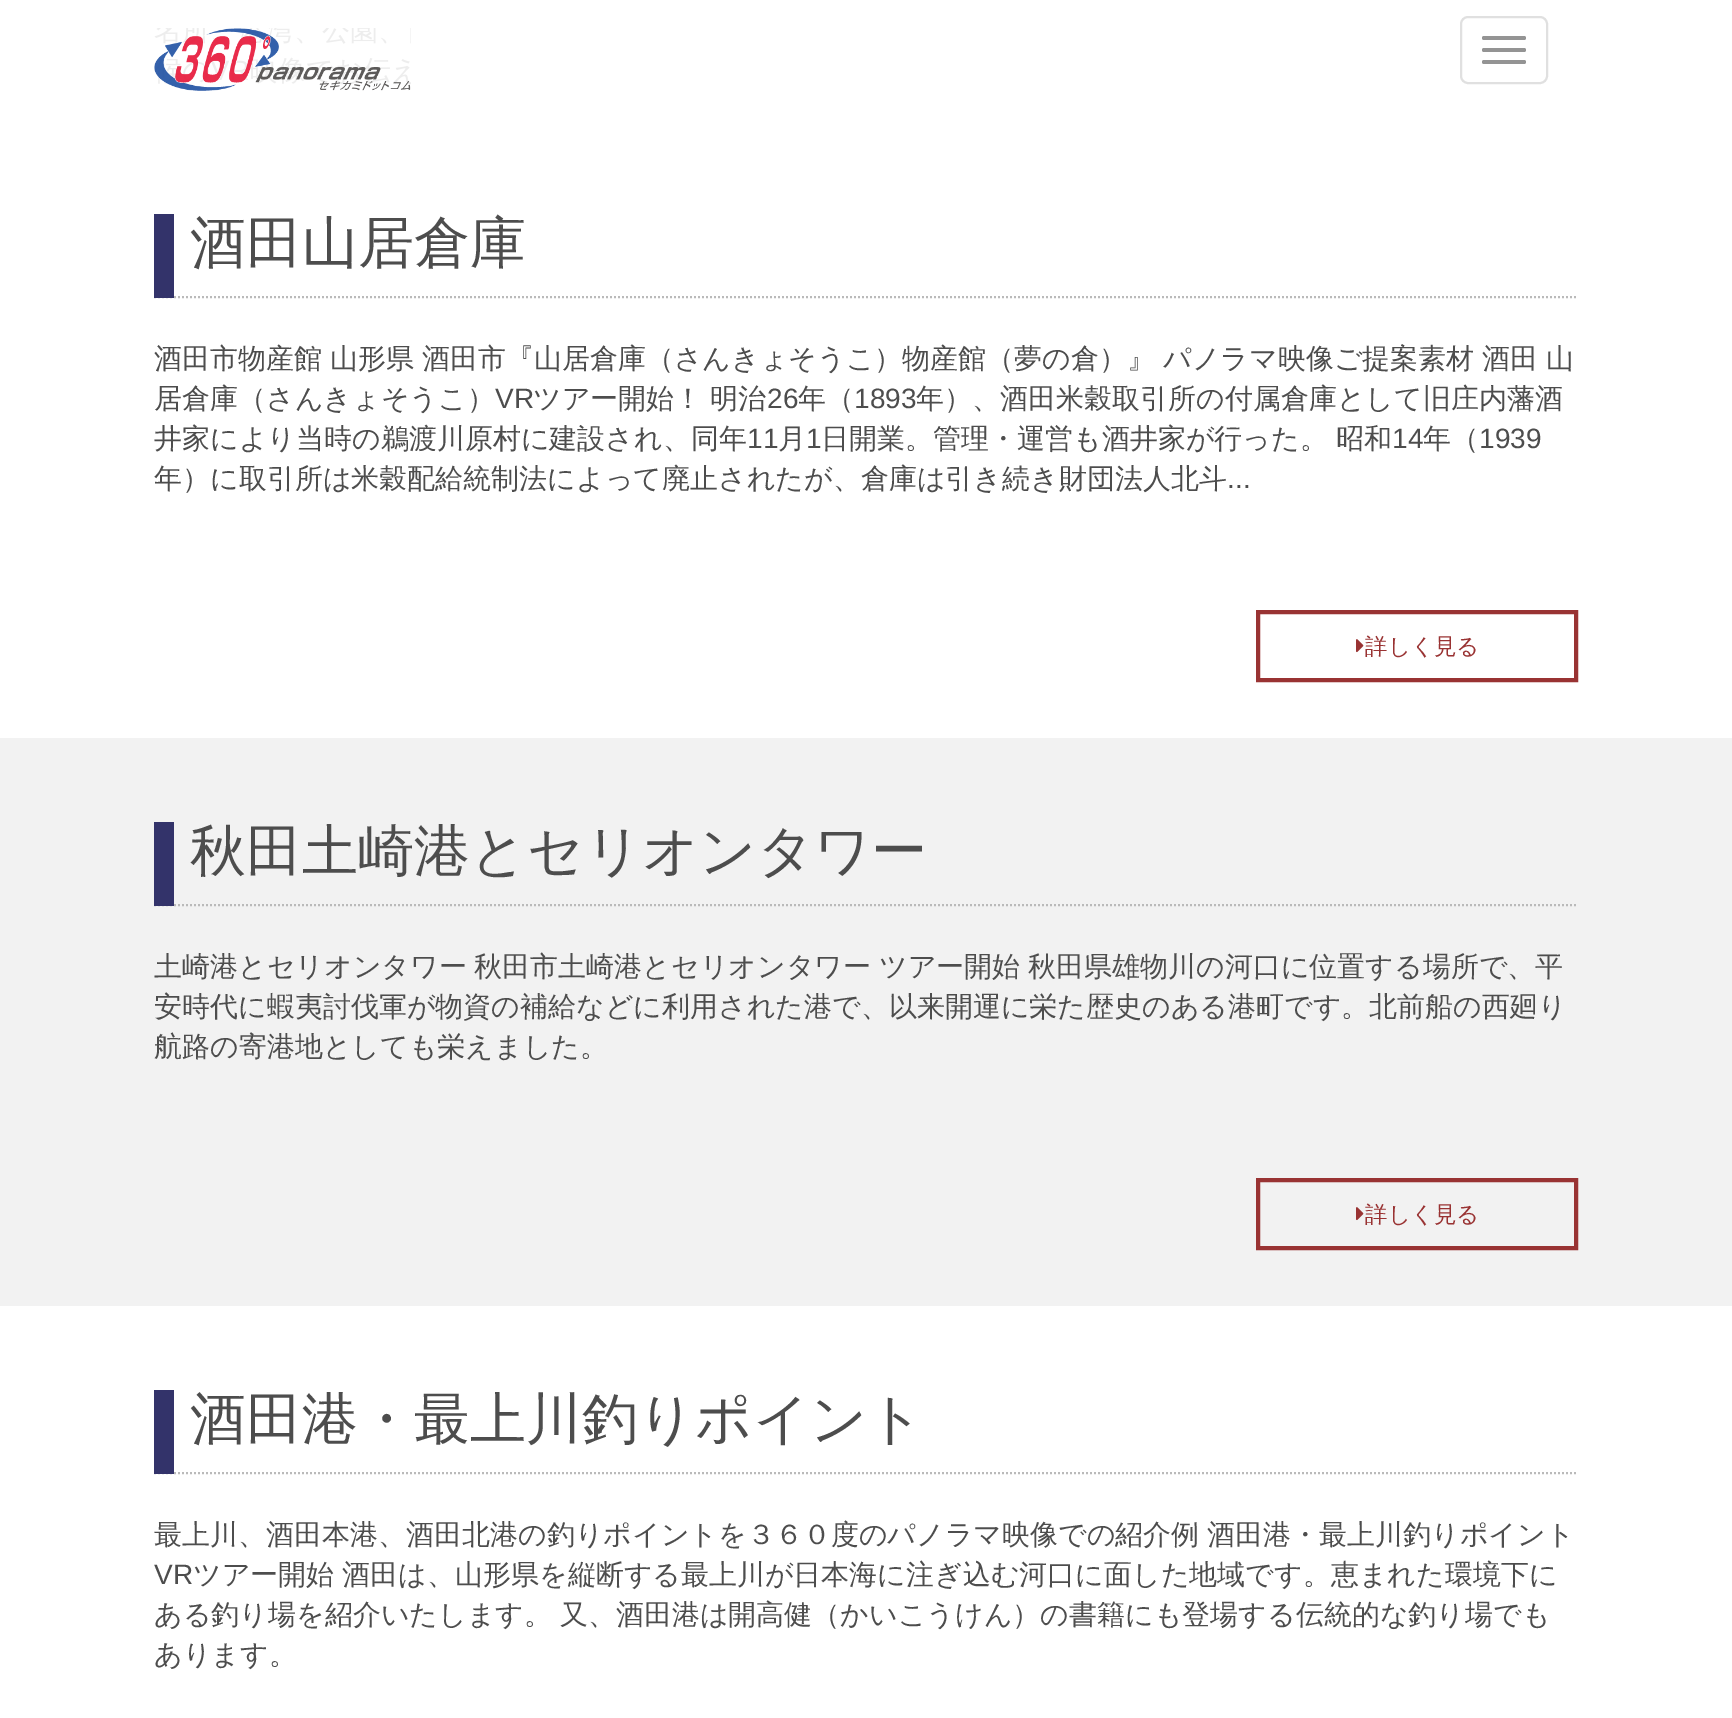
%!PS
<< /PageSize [1732 1718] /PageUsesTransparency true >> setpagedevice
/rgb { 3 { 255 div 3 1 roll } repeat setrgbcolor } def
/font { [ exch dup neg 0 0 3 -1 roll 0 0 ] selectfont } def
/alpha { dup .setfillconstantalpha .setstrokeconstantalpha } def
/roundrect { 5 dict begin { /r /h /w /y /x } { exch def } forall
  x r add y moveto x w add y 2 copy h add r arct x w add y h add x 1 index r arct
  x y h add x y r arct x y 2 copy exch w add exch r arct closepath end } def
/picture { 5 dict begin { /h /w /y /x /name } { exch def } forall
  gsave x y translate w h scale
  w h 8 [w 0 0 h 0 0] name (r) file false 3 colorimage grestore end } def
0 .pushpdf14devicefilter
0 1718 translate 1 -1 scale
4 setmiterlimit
255 255 255 rgb
0 0 1732 1718 rectfill
(img/1.rgb) 154 28 257 63 picture
0.9 alpha
221 221 221 rgb
2 setlinewidth
1461 17 86 66 7 roundrect stroke
136 136 136 rgb
1482 36 44 4 2 roundrect fill
1 alpha
148 148 148 rgb
1482 48 44 4 2 roundrect fill
0.9 alpha
136 136 136 rgb
1482 60 44 4 2 roundrect fill
1 alpha
186 186 186 rgb
[2 2] 0 setdash
154 297 moveto 1578 297 lineto stroke
51 51 106 rgb
154 214 20 84 rectfill
153 51 51 rgb
4 setlinewidth
[] 0 setdash
1258 612 318 68 rectstroke
(img/2.rgb) 1356 639 8 14 picture
242 242 242 rgb
0 738 1732 568 rectfill
186 186 186 rgb
2 setlinewidth
[2 2] 0 setdash
154 905 moveto 1578 905 lineto stroke
51 51 106 rgb
154 822 20 84 rectfill
153 51 51 rgb
4 setlinewidth
[] 0 setdash
1258 1180 318 68 rectstroke
(img/3.rgb) 1356 1207 8 14 picture
186 186 186 rgb
2 setlinewidth
[2 2] 0 setdash
154 1473 moveto 1578 1473 lineto stroke
51 51 106 rgb
154 1390 20 84 rectfill
/WenQuanYiZenHei-Medium 56 font
77 77 77 rgb
190 262 moveto (酒田山居倉庫) show
/WenQuanYiZenHei-Medium 28 font
154 368 moveto -0.5 0 32 (酒田市物産館 山形県 酒田市『山居倉庫（さんきょそうこ）物産館（夢の倉）』 パノラマ映像ご提案素材 酒田 山) widthshow
154 408 moveto (居倉庫（さんきょそうこ）) show
/LiberationSans-Regular 28 font
495 408 moveto (VR) show
/WenQuanYiZenHei-Medium 28 font
533 408 moveto -0.5 0 32 (ツアー開始！ 明治) widthshow
/LiberationSans-Regular 28 font
767 408 moveto (26) show
/WenQuanYiZenHei-Medium 28 font
798 408 moveto (年（) show
/LiberationSans-Regular 28 font
854 408 moveto (1893) show
/WenQuanYiZenHei-Medium 28 font
916 408 moveto (年）、酒田米穀取引所の付属倉庫として旧庄内藩酒) show
154 448 moveto (井家により当時の鵜渡川原村に建設され、同年) show
/LiberationSans-Regular 28 font
747 448 moveto (11) show
/WenQuanYiZenHei-Medium 28 font
778 448 moveto (月) show
/LiberationSans-Regular 28 font
806 448 moveto (1) show
/WenQuanYiZenHei-Medium 28 font
821 448 moveto -0.5 0 32 (日開業。管理・運営も酒井家が行った。 昭和) widthshow
/LiberationSans-Regular 28 font
1392 448 moveto (14) show
/WenQuanYiZenHei-Medium 28 font
1423 448 moveto (年（) show
/LiberationSans-Regular 28 font
1479 448 moveto (1939) show
/WenQuanYiZenHei-Medium 28 font
154 488 moveto (年）に取引所は米穀配給統制法によって廃止されたが、倉庫は引き続き財団法人北斗) show
/LiberationSans-Regular 28 font
1227 488 moveto (...) show
/WenQuanYiZenHei-Medium 22.5 font
153 51 51 rgb
1365 654 moveto (詳しく見る) show
/WenQuanYiZenHei-Medium 56 font
77 77 77 rgb
190 870 moveto (秋田土崎港とセリオンタワー) show
/WenQuanYiZenHei-Medium 28 font
154 976 moveto -0.5 0 32 (土崎港とセリオンタワー 秋田市土崎港とセリオンタワー ツアー開始 秋田県雄物川の河口に位置する場所で、平) widthshow
154 1016 moveto (安時代に蝦夷討伐軍が物資の補給などに利用された港で、以来開運に栄た歴史のある港町です。北前船の西廻り) show
154 1056 moveto (航路の寄港地としても栄えました。) show
/WenQuanYiZenHei-Medium 22.5 font
153 51 51 rgb
1365 1222 moveto (詳しく見る) show
/WenQuanYiZenHei-Medium 56 font
77 77 77 rgb
190 1438 moveto (酒田港・最上川釣りポイント) show
/WenQuanYiZenHei-Medium 28 font
154 1544 moveto -0.5 0 32 (最上川、酒田本港、酒田北港の釣りポイントを３６０度のパノラマ映像での紹介例 酒田港・最上川釣りポイント) widthshow
/LiberationSans-Regular 28 font
154 1584 moveto (VR) show
/WenQuanYiZenHei-Medium 28 font
193 1584 moveto -0.5 0 32 (ツアー開始 酒田は、山形県を縦断する最上川が日本海に注ぎ込む河口に面した地域です。恵まれた環境下に) widthshow
154 1624 moveto -0.5 0 32 (ある釣り場を紹介いたします。 又、酒田港は開高健（かいこうけん）の書籍にも登場する伝統的な釣り場でも) widthshow
154 1664 moveto (あります。) show
.poppdf14devicefilter showpage
